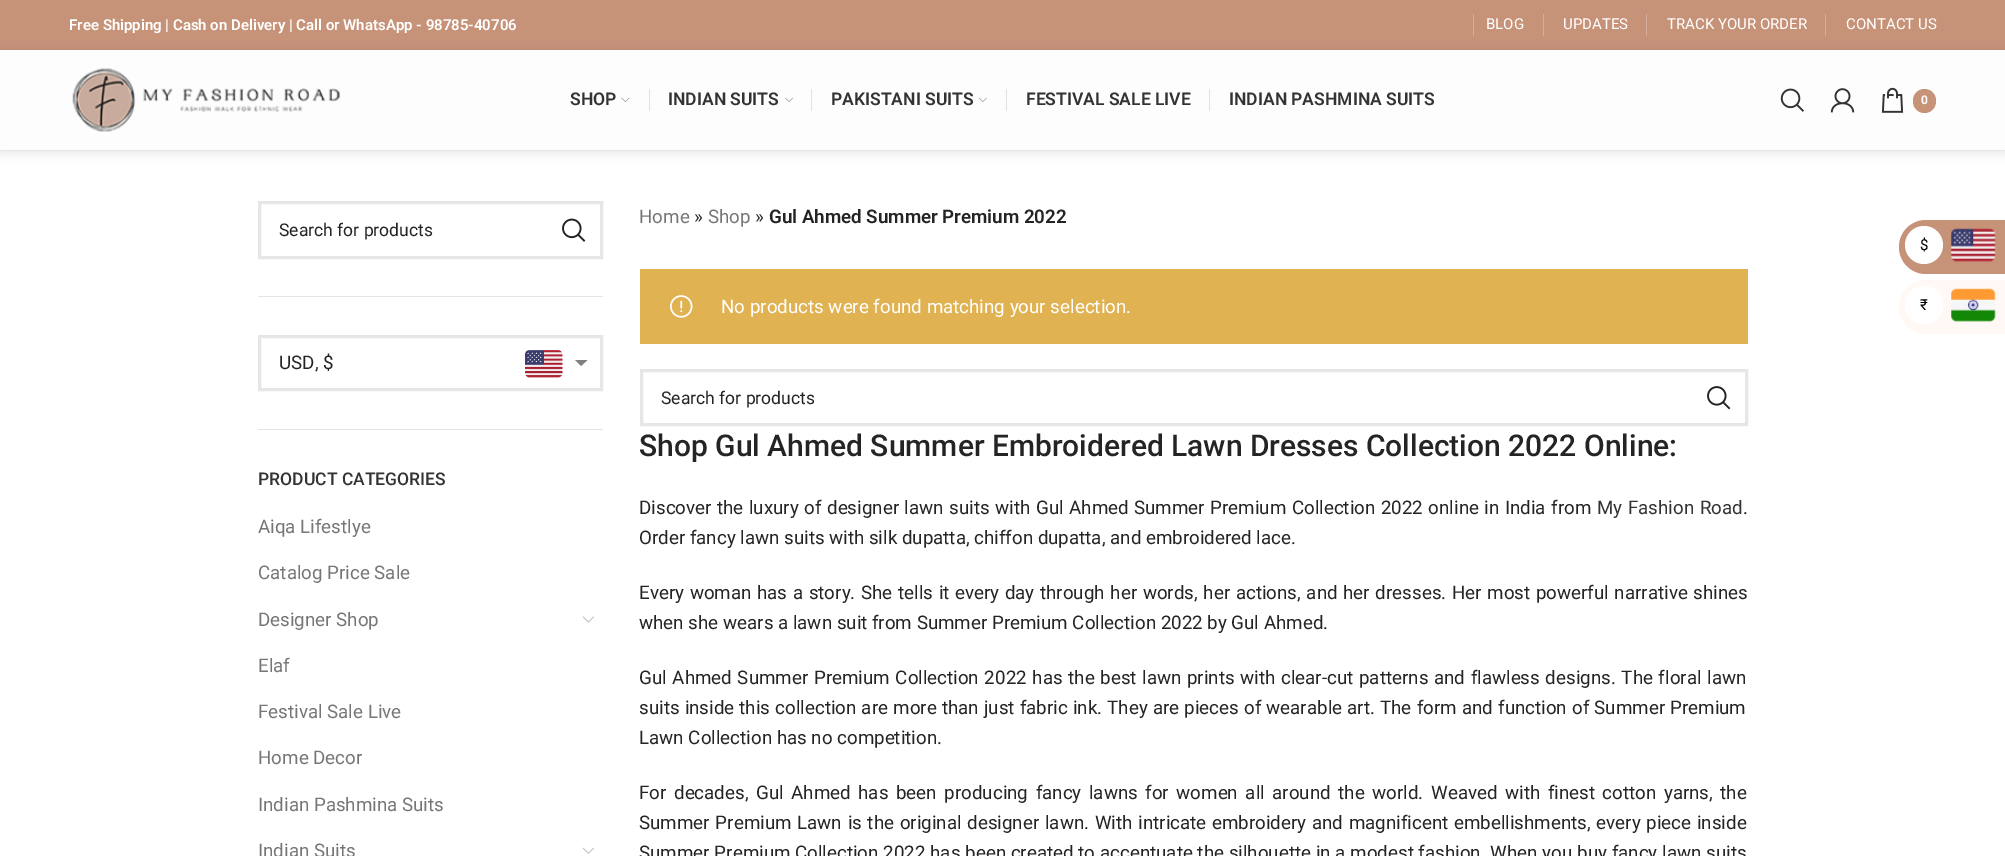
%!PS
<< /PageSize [2005 856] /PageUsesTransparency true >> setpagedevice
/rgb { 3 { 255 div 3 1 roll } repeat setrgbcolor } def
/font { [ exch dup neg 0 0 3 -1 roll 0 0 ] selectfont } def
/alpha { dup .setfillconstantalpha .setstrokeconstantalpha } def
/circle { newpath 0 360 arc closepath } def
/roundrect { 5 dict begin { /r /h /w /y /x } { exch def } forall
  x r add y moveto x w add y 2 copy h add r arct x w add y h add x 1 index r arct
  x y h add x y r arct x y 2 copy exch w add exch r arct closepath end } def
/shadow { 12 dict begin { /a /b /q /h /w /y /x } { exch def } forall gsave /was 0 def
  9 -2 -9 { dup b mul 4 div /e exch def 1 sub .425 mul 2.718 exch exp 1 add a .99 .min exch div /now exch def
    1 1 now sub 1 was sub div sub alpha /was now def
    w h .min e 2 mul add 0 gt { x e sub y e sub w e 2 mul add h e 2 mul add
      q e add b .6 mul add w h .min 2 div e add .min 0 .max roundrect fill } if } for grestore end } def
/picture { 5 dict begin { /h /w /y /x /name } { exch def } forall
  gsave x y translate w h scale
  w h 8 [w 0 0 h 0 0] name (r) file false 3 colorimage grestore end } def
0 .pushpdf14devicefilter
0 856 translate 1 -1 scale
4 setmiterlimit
255 255 255 rgb
0 0 2005 856 rectfill
198 147 121 rgb
0 0 2005 50 rectfill
0 0 0 rgb
0 51 2005 102 0 5 0.1 shadow
[
  [1473 14 1 22 212 174 154]
  [1543 14 1 22 212 174 154]
  [1646 14 1 22 212 174 154]
  [1825 14 1 22 212 174 154]
  [0 50 2005 100 253 253 253]
  [0 150 2005 1 232 232 232]
] { aload pop rgb rectfill } forall
(img/1.rgb) 72 68 268 64 picture
(img/2.rgb) 621 97 9 5 picture
226 226 226 rgb
649 89 1 22 rectfill
(img/3.rgb) 785 97 8 5 picture
811 89 1 22 rectfill
(img/4.rgb) 978 97 9 5 picture
1006 89 1 22 rectfill
1209 89 1 22 rectfill
(img/5.rgb) 1780 88 24 24 picture
(img/6.rgb) 1830 88 25 25 picture
(img/7.rgb) 1881 87 23 26 picture
198 147 121 rgb
1913 89 23 24 11.5 roundrect fill
228 228 228 rgb
258 296 345 1 rectfill
230 230 230 rgb
3 setlinewidth
259.5 202.5 342 55 rectstroke
(img/8.rgb) 562 218 24 24 picture
228 228 228 rgb
258 429 345 1 rectfill
230 230 230 rgb
259.5 336.5 342 53 rectstroke
(img/9.rgb) 525 350 38 28 picture
128 128 128 rgb
575 360 moveto 587.5 360 lineto 581 366 lineto closepath fill
(img/10.rgb) 582 616 12 7 picture
(img/11.rgb) 582 847 12 7 picture
224 178 82 rgb
640 269 1108 75 rectfill
(img/12.rgb) 670 295 23 23 picture
230 230 230 rgb
641.5 370.5 1105 54 rectstroke
(img/13.rgb) 1707 386 24 24 picture
198 147 121 rgb
1926 220 moveto 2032 220 lineto 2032 274 lineto 1926 274 lineto 1911 274 1899 262 1899 247 curveto 1899 232 1911 220 1926 220 curveto closepath fill
255 255 255 rgb
1924 245 19 circle fill
(img/14.rgb) 1951 228 45 34 picture
255 248 244 rgb
1926 280 moveto 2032 280 lineto 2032 334 lineto 1926 334 lineto 1911 334 1899 322 1899 307 curveto 1899 292 1911 280 1926 280 curveto closepath fill
255 255 255 rgb
1924 305 19 circle fill
(img/15.rgb) 1951 288 45 34 picture
/Roboto-SemiBold 15 font
69 30 moveto (Free Shipping | Cash on Delivery | Call or WhatsApp - 98785-40706) show
/Roboto-Regular 15 font
[
  [(BLOG) 1486 29]
  [(UPDATES) 1563 29]
  [(TRACK YOUR ORDER) 1667 29]
  [(CONTACT US) 1846 29]
] { aload pop moveto show } forall
/Roboto-SemiBold 17.5 font
51 51 51 rgb
[
  [(SHOP) 570 105]
  [(INDIAN SUITS) 668 105]
  [(PAKISTANI SUITS) 831 105]
  [(FESTIVAL SALE LIVE) 1026 105]
  [(INDIAN PASHMINA SUITS) 1229 105]
] { aload pop moveto show } forall
/Roboto-Bold 12 font
255 255 255 rgb
1921 104 moveto (0) show
/Roboto-Regular 17.5 font
36 36 36 rgb
279 236 moveto (Search for products) show
/Roboto-Regular 18.75 font
279 369 moveto (USD, $) show
/Roboto-Medium 17.5 font
51 51 51 rgb
258 485 moveto (PRODUCT CATEGORIES) show
/Roboto-Regular 18.75 font
118 118 118 rgb
[
  [(Aiqa Lifestlye) 258 533]
  [(Catalog Price Sale) 258 579]
  [(Designer Shop) 258 626]
  [(Elaf) 258 672]
  [(Festival Sale Live) 258 718]
  [(Home Decor) 258 764]
  [(Indian Pashmina Suits) 258 811]
  [(Indian Suits) 258 857]
  [(Home) 639 223]
] { aload pop moveto show } forall
36 36 36 rgb
694 223 moveto (») show
118 118 118 rgb
708 223 moveto (Shop) show
36 36 36 rgb
755 223 moveto (») show
/Roboto-SemiBold 18.75 font
769 223 moveto (Gul Ahmed Summer Premium 2022) show
/Roboto-Regular 18.75 font
255 255 255 rgb
721 313 moveto (No products were found matching your selection.) show
/Roboto-Regular 17.5 font
36 36 36 rgb
661 404 moveto (Search for products) show
/Roboto-Medium 30 font
639 456 moveto (Shop Gul Ahmed Summer Embroidered Lawn Dresses Collection 2022 Online:) show
/Roboto-Regular 18.75 font
639 514 moveto 0.9 0 32 (Discover the luxury of designer lawn suits with Gul Ahmed Summer Premium Collection 2022 online in India from) widthshow
51 51 51 rgb
1597 514 moveto 1 0 32 (My Fashion Road) widthshow
36 36 36 rgb
1743 514 moveto (.) show
639 544 moveto (Order fancy lawn suits with silk dupatta, chiffon dupatta, and embroidered lace.) show
639 599 moveto 1 0 32 (Every woman has a story. She tells it every day through her words, her actions, and her dresses. Her most powerful narrative shines) widthshow
639 629 moveto (when she wears a lawn suit from Summer Premium Collection 2022 by Gul Ahmed.) show
639 684 moveto 1 0 32 (Gul Ahmed Summer Premium Collection 2022 has the best lawn prints with clear-cut patterns and flawless designs. The floral lawn) widthshow
639 714 moveto 0.5 0 32 (suits inside this collection are more than just fabric ink. They are pieces of wearable art. The form and function of Summer Premium) widthshow
639 744 moveto (Lawn Collection has no competition.) show
639 799 moveto 2.9 0 32 (For decades, Gul Ahmed has been producing fancy lawns for women all around the world. Weaved with finest cotton yarns, the) widthshow
639 829 moveto 1.1 0 32 (Summer Premium Lawn is the original designer lawn. With intricate embroidery and magnificent embellishments, every piece inside) widthshow
639 859 moveto 0.1 0 32 (Summer Premium Collection 2022 has been created to accentuate the silhouette in a modest fashion. When you buy fancy lawn suits) widthshow
/Roboto-Regular 15 font
0 0 0 rgb
1920 250 moveto ($) show
1920 310 moveto (₹) show
.poppdf14devicefilter showpage
